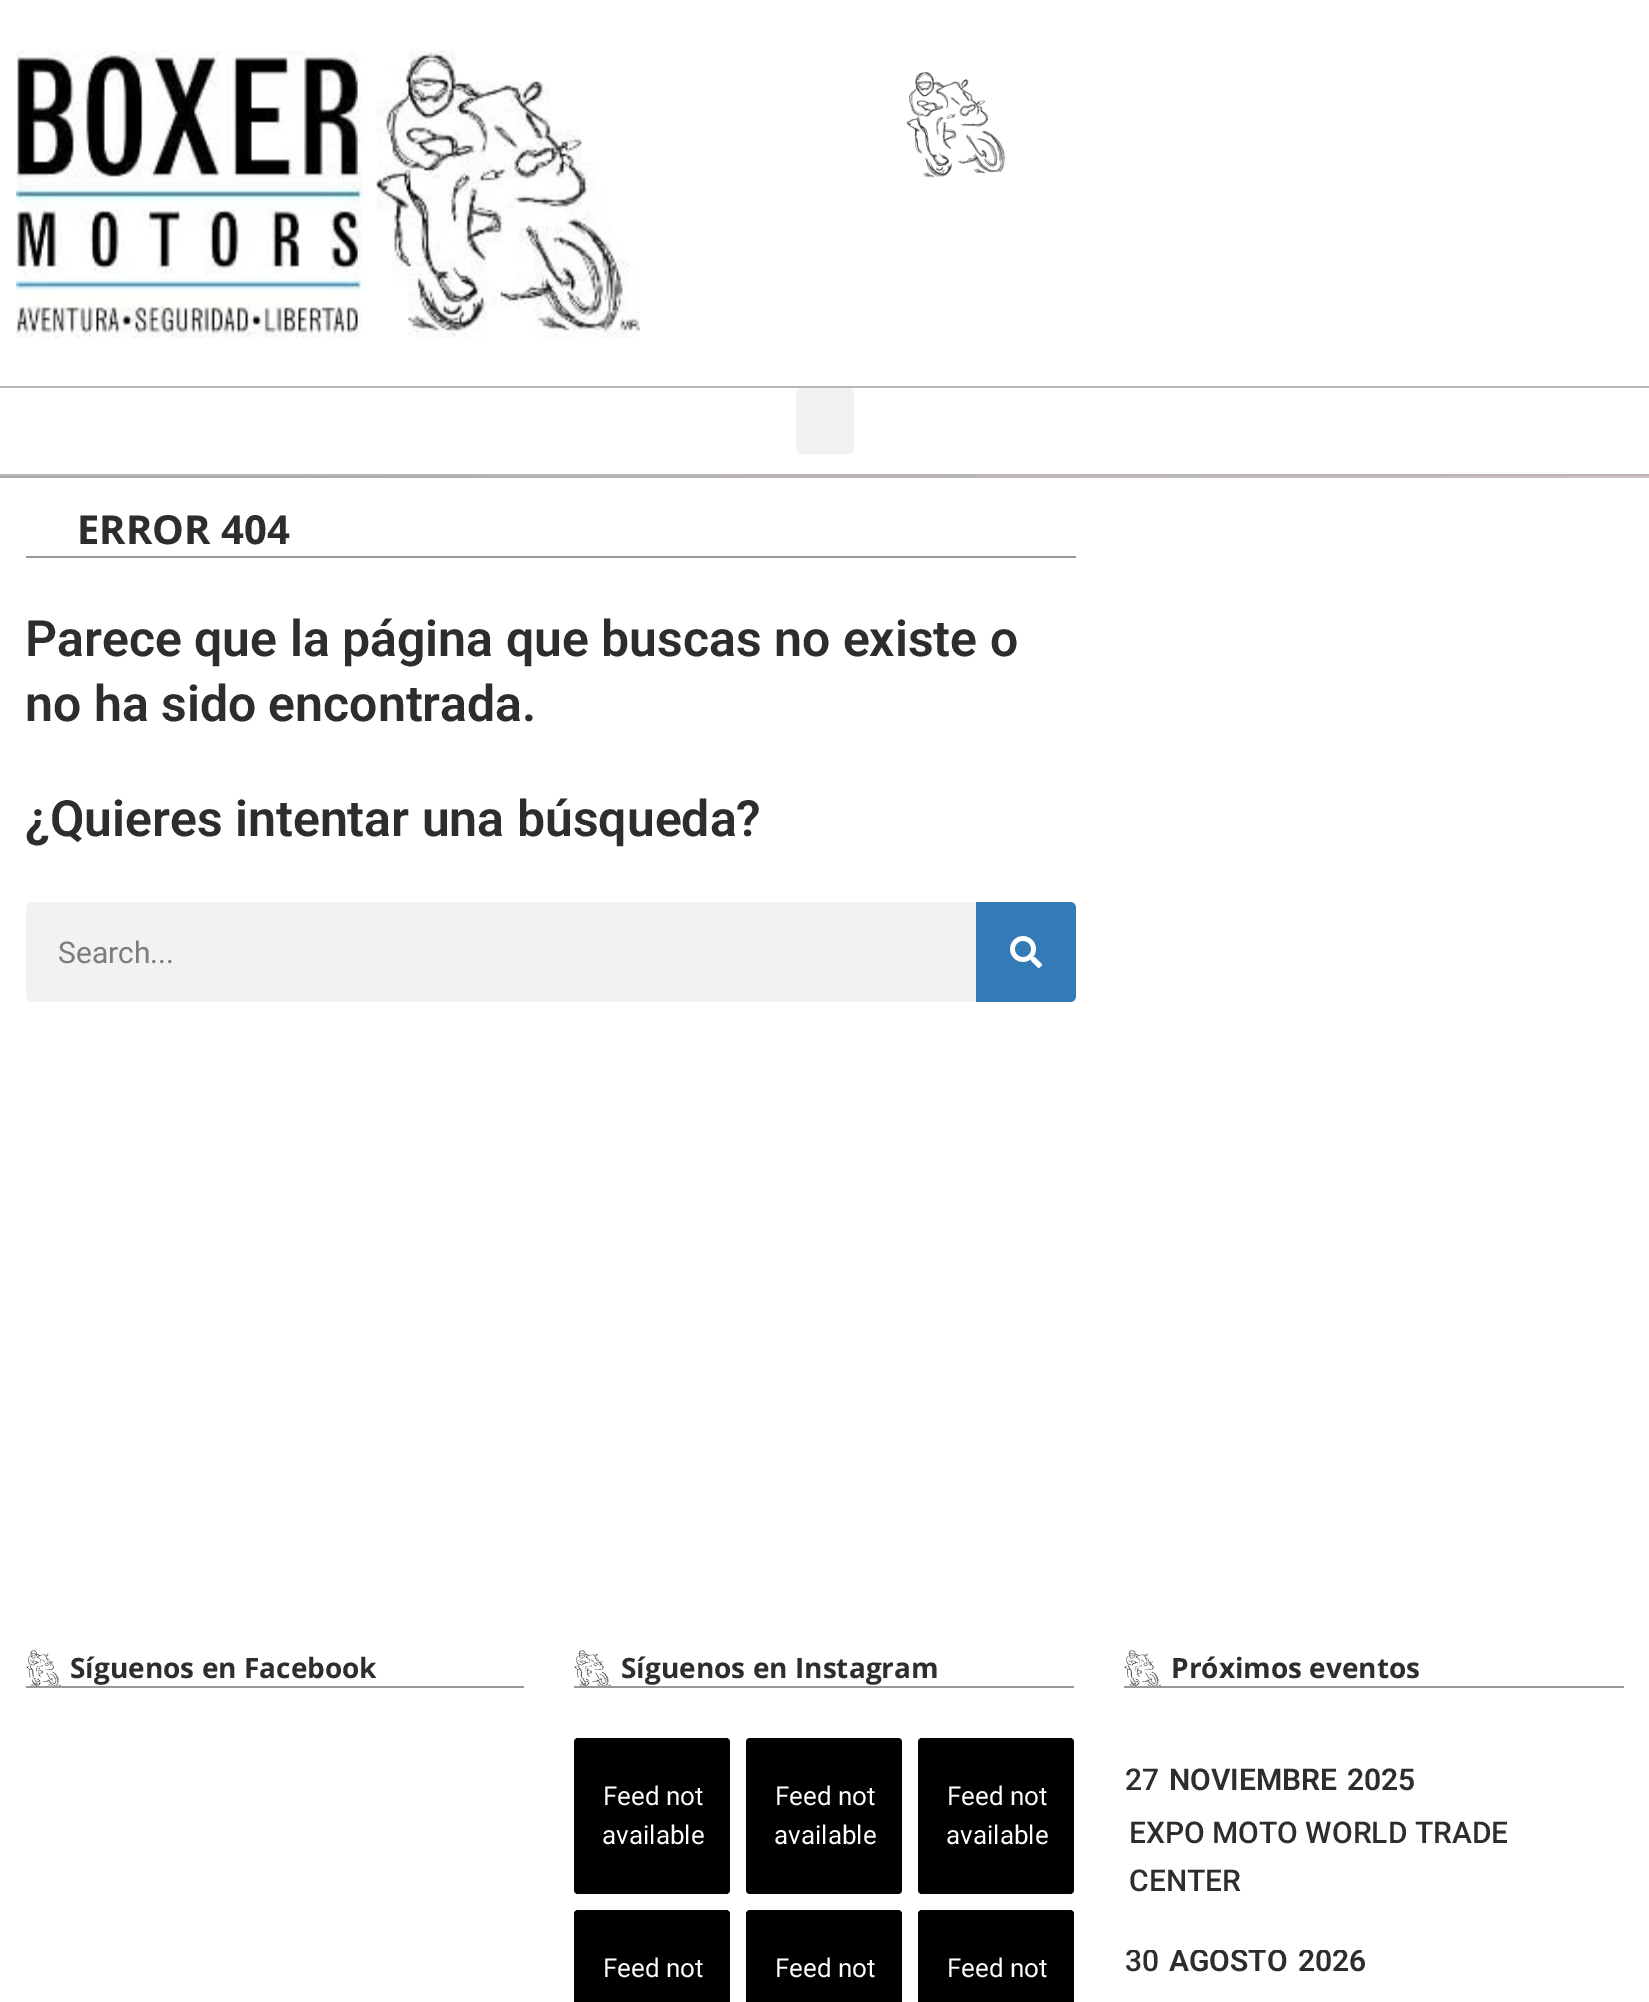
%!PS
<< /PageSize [1649 2002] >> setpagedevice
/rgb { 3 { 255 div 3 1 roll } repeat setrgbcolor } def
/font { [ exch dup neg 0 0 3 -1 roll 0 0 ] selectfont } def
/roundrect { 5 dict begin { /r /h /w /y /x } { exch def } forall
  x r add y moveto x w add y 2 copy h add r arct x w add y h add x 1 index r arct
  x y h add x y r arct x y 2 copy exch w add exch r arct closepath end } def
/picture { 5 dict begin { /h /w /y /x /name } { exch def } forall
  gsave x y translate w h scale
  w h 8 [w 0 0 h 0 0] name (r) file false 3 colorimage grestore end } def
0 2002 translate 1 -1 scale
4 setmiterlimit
255 255 255 rgb
0 0 1649 2002 rectfill
(img/1.rgb) 0 476 1649 2 picture
(img/2.rgb) 16 50 624 288 picture
(img/3.rgb) 906 72 100 106 picture
183 183 187 rgb
0 386 1649 2 rectfill
0 474 1649 2 rectfill
242 242 242 rgb
796 388 58 66 6 roundrect fill
152 152 152 rgb
26 556 1050 2 rectfill
241 242 243 rgb
26 902 1050 100 6 roundrect fill
51 122 183 rgb
976 902 moveto 1070 902 lineto 1073.5 902 1076 904.5 1076 908 curveto 1076 996 lineto 1076 999.5 1073.5 1002 1070 1002 curveto 976 1002 lineto closepath fill
(img/4.rgb) 1010 936 32 32 picture
152 152 152 rgb
26 1686 498 2 rectfill
(img/5.rgb) 26 1650 36 36 picture
574 1686 500 2 rectfill
(img/6.rgb) 574 1650 38 36 picture
0 0 0 rgb
574 1738 156 156 4 roundrect fill
746 1738 156 156 4 roundrect fill
918 1738 156 156 4 roundrect fill
574 1910 156 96 4 roundrect fill
746 1910 156 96 4 roundrect fill
918 1910 156 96 4 roundrect fill
152 152 152 rgb
1124 1686 500 2 rectfill
(img/6.rgb) 1124 1650 38 36 picture
/OpenSans-Bold 40 font
45 45 45 rgb
77 544 moveto (ERROR 404) show
/Roboto-SemiBold 50 font
[
  [(Parece que la página que buscas no existe o) 25 656]
  [(no ha sido encontrada.) 25 721]
  [(¿Quieres intentar una búsqueda?) 25 836]
] { aload pop moveto show } forall
/Roboto-Regular 30 font
123 124 124 rgb
58 963 moveto (Search...) show
/OpenSans-Bold 28 font
45 45 45 rgb
70 1678 moveto (Síguenos en Facebook) show
621 1678 moveto (Síguenos en Instagram) show
/Roboto-Regular 26 font
255 255 255 rgb
[
  [(Feed not) 603 1805]
  [(available) 602 1844]
  [(Feed not) 775 1805]
  [(available) 774 1844]
  [(Feed not) 947 1805]
  [(available) 946 1844]
  [(Feed not) 603 1977]
  [(Feed not) 775 1977]
  [(Feed not) 947 1977]
] { aload pop moveto show } forall
/OpenSans-Bold 28 font
45 45 45 rgb
1171 1678 moveto (Próximos eventos) show
/Roboto-Medium 30 font
1125 1790 moveto (27) show
/Roboto-SemiBold 30 font
1169 1790 moveto (NOVIEMBRE) show
1347 1790 moveto (2025) show
/Roboto-Medium 30 font
1129 1843 moveto (EXPO MOTO WORLD TRADE) show
1129 1891 moveto (CENTER) show
gsave
1124 1950 500 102 8 roundrect clip newpath
1125 1971 moveto (30) show
/Roboto-SemiBold 30 font
1169 1971 moveto (AGOSTO) show
1298 1971 moveto (2026) show
grestore
showpage
